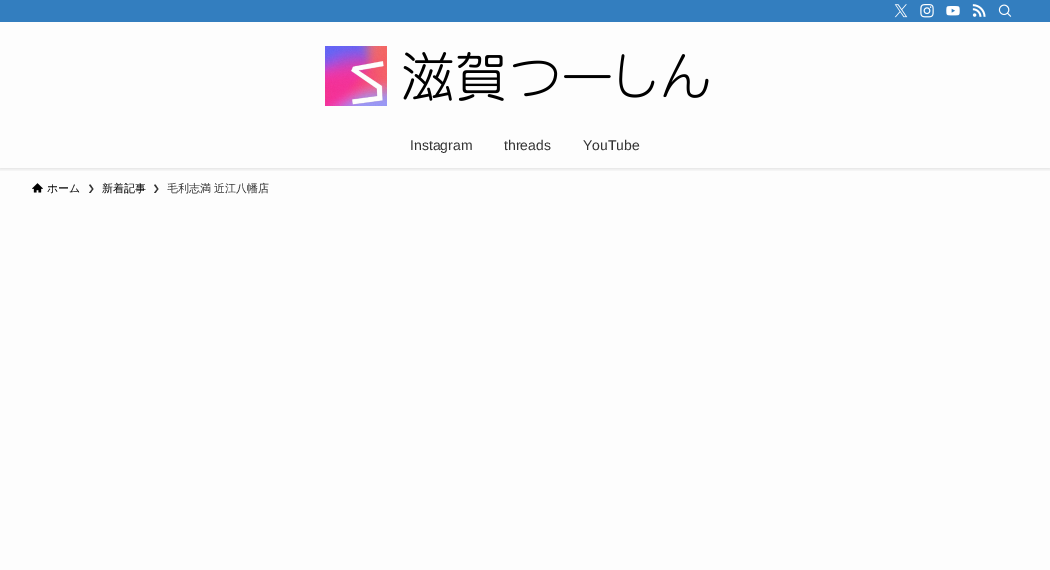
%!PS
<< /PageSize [1050 570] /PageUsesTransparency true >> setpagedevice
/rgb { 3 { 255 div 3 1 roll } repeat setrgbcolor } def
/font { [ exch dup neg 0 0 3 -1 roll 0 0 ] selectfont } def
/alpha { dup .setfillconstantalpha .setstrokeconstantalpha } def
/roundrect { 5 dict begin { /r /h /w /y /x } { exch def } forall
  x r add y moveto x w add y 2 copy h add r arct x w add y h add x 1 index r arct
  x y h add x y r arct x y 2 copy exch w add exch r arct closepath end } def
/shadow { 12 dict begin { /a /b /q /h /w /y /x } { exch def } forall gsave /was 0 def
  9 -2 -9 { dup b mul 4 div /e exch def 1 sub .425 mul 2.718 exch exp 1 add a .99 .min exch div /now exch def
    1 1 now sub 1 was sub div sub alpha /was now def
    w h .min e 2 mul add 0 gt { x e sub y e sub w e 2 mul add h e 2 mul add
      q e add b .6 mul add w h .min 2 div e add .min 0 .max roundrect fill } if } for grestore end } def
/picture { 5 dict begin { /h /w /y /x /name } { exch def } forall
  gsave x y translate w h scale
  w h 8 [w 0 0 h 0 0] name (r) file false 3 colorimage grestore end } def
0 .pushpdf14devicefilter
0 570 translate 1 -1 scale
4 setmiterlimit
253 253 253 rgb
0 0 1050 570 rectfill
gsave
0 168 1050 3 rectclip
0 0 0 rgb
0 1 1050 168 0 2 0.12 shadow
grestore
51 126 191 rgb
0 0 1050 22 rectfill
(img/1.rgb) 894 4 14 14 picture
(img/2.rgb) 920 4 14 14 picture
(img/3.rgb) 946 6 14 10 picture
(img/4.rgb) 972 4 14 13 picture
(img/5.rgb) 998 4 14 13 picture
(img/6.rgb) 325 46 384 60 picture
(img/7.rgb) 32 183 11 10 picture
51 51 51 rgb
90.5 184.5 moveto 89 185 lineto 92 189 lineto 89 193 lineto 90.5 193 lineto 93.5 189 lineto closepath fill
155.5 184.5 moveto 154 185 lineto 157 189 lineto 154 193 lineto 155.5 193 lineto 158.5 189 lineto closepath fill
/LiberationSans-Regular 14 font
[
  [(Instagram) 410 150]
  [(threads) 504 150]
  [(YouTube) 583 150]
] { aload pop moveto show } forall
/WenQuanYiZenHei-Medium 11 font
0 0 0 rgb
47 192 moveto (ホーム) show
102 192 moveto (新着記事) show
51 51 51 rgb
167 192 moveto (毛利志満 近江八幡店) show
.poppdf14devicefilter showpage
